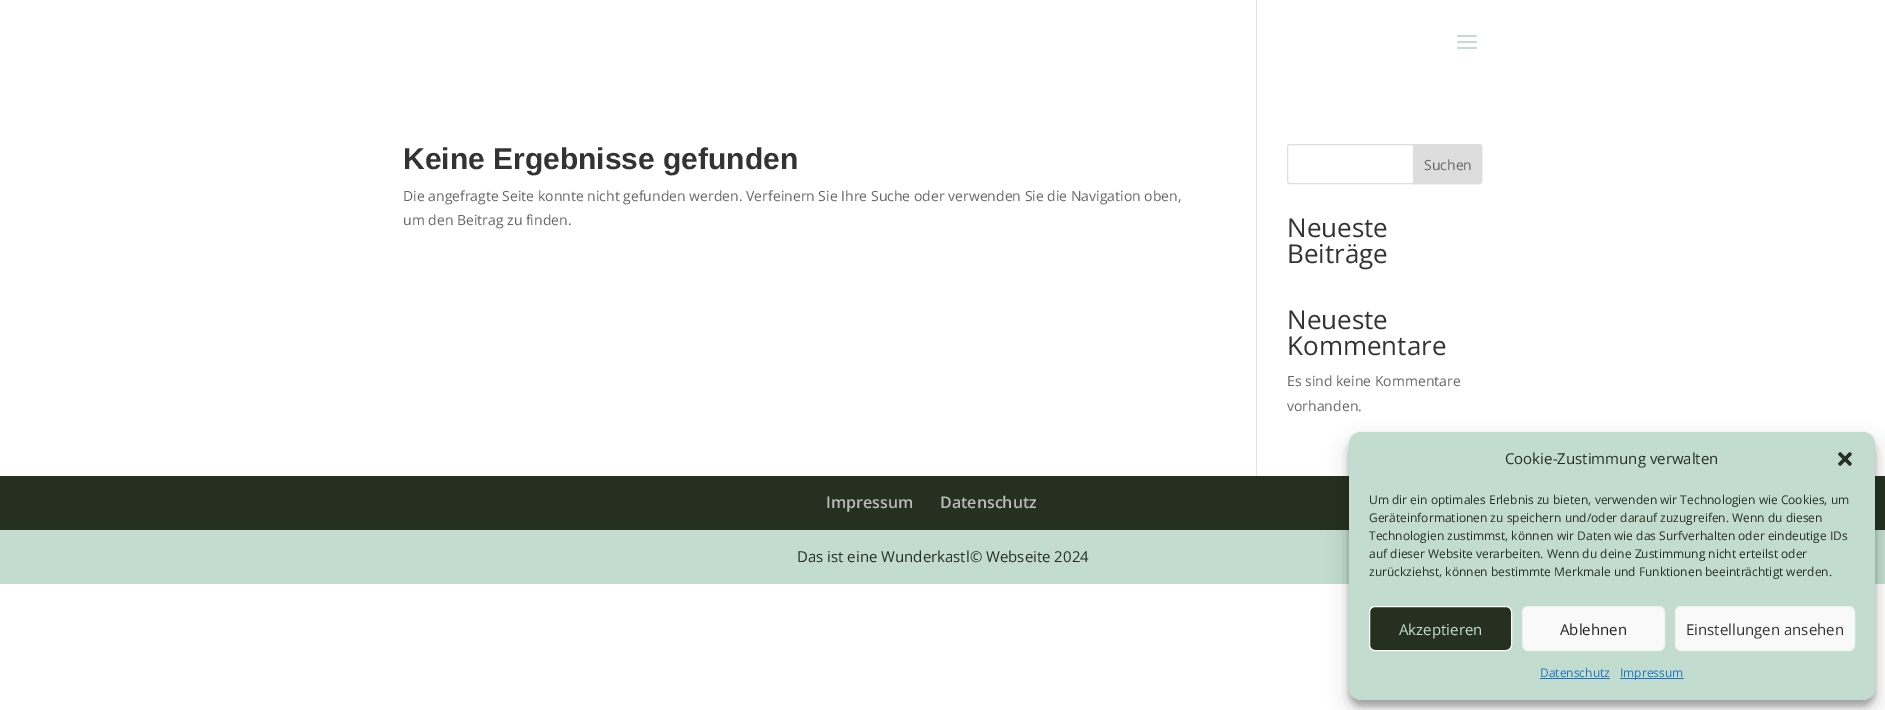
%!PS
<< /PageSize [1885 710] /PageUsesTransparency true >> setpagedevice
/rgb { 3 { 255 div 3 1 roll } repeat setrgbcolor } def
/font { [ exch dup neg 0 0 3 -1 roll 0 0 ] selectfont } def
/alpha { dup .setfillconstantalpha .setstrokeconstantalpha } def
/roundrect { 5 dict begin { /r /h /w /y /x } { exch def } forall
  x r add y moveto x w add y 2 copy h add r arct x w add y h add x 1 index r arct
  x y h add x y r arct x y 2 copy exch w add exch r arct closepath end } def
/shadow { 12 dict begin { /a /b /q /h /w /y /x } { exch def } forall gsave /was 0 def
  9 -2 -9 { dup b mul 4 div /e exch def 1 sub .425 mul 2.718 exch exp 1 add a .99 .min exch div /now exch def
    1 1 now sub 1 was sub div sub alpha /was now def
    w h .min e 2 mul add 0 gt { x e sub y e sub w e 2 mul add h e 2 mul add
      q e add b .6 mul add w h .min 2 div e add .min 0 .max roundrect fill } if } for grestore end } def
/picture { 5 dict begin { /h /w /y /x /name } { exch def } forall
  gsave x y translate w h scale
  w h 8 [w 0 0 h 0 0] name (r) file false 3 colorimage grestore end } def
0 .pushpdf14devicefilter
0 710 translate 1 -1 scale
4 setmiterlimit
255 255 255 rgb
0 0 1885 710 rectfill
(img/1.rgb) 1457 35 20 14 picture
226 226 226 rgb
1256 0 1 476 rectfill
221 221 221 rgb
1287.5 144.5 194 39 2.5 roundrect stroke
1413.5 144.5 moveto 1479 144.5 lineto 1480.5 144.5 1481.5 145.5 1481.5 147 curveto 1481.5 181 lineto 1481.5 182.5 1480.5 183.5 1479 183.5 curveto 1413.5 183.5 lineto closepath gsave fill grestore
stroke
38 48 32 rgb
0 476 1885 54 rectfill
194 220 207 rgb
0 530 1885 54 rectfill
0 0 0 rgb
1349 438 526 268 12 3 0.23 shadow
1349 442 526 268 12 10 0.19 shadow
194 220 207 rgb
1349 432 526 268 12 roundrect fill
(img/2.rgb) 1838 452 14 14 picture
38 48 32 rgb
1369.5 606.5 142 44 5.5 roundrect gsave fill grestore
255 255 255 rgb
stroke
249 249 249 rgb
1522.5 606.5 142 44 5.5 roundrect gsave fill grestore
242 242 242 rgb
stroke
249 249 249 rgb
1675.5 606.5 179 44 5.5 roundrect gsave fill grestore
242 242 242 rgb
stroke
30 115 190 rgb
1540 678 70 1 rectfill
1620 678 64 1 rectfill
/LiberationSans-Bold 30 font
51 51 51 rgb
403 169 moveto (Keine Ergebnisse gefunden) show
/OpenSans-Regular 14 font
102 102 102 rgb
[
  [(Die angefragte Seite konnte nicht gefunden werden. Verfeinern Sie Ihre Suche oder verwenden Sie die Navigation oben,) 403 201]
  [(um den Beitrag zu finden.) 403 225]
  [(Suchen) 1424 170]
] { aload pop moveto show } forall
/OpenSans-Regular 26 font
51 51 51 rgb
[
  [(Neueste) 1287 237]
  [(Beiträge) 1287 263]
  [(Neueste) 1287 329]
  [(Kommentare) 1287 355]
] { aload pop moveto show } forall
/OpenSans-Regular 14 font
102 102 102 rgb
1287 386 moveto (Es sind keine Kommentare) show
1287 411 moveto (vorhanden.) show
/OpenSans-SemiBold 16 font
187 187 187 rgb
826 508 moveto (Impressum) show
940 508 moveto (Datenschutz) show
/OpenSans-Regular 15 font
38 48 32 rgb
797 562 moveto (Das ist eine Wunderkastl© Webseite 2024) show
1505 464 moveto (Cookie-Zustimmung verwalten) show
/OpenSans-Regular 12 font
[
  [(Um dir ein optimales Erlebnis zu bieten, verwenden wir Technologien wie Cookies, um) 1369 504]
  [(Geräteinformationen zu speichern und/oder darauf zuzugreifen. Wenn du diesen) 1369 522]
  [(Technologien zustimmst, können wir Daten wie das Surfverhalten oder eindeutige IDs) 1369 540]
  [(auf dieser Website verarbeiten. Wenn du deine Zustimmung nicht erteilst oder) 1369 558]
  [(zurückziehst, können bestimmte Merkmale und Funktionen beeinträchtigt werden.) 1369 576]
] { aload pop moveto show } forall
/OpenSans-Regular 15 font
194 220 207 rgb
1399 635 moveto (Akzeptieren) show
34 34 34 rgb
1560 635 moveto (Ablehnen) show
51 51 51 rgb
1686 635 moveto (Einstellungen ansehen) show
/OpenSans-Regular 12 font
30 115 190 rgb
1540 677 moveto (Datenschutz) show
1620 677 moveto (Impressum) show
.poppdf14devicefilter showpage
